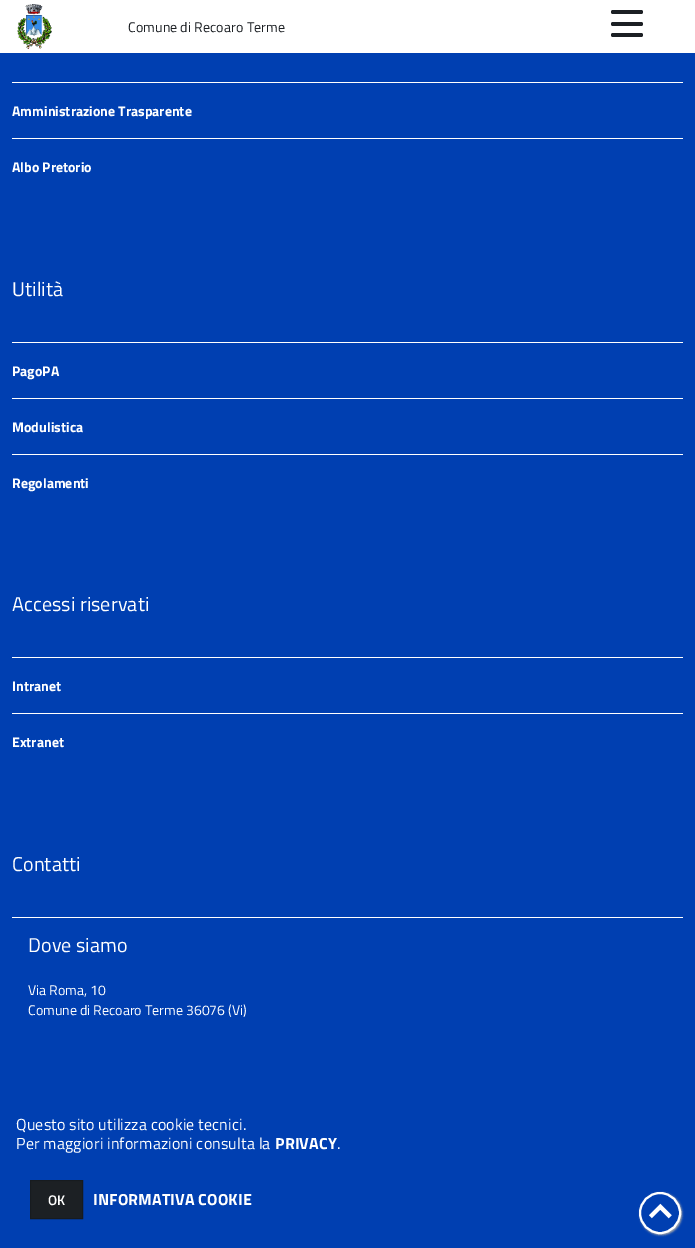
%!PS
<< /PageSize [695 1248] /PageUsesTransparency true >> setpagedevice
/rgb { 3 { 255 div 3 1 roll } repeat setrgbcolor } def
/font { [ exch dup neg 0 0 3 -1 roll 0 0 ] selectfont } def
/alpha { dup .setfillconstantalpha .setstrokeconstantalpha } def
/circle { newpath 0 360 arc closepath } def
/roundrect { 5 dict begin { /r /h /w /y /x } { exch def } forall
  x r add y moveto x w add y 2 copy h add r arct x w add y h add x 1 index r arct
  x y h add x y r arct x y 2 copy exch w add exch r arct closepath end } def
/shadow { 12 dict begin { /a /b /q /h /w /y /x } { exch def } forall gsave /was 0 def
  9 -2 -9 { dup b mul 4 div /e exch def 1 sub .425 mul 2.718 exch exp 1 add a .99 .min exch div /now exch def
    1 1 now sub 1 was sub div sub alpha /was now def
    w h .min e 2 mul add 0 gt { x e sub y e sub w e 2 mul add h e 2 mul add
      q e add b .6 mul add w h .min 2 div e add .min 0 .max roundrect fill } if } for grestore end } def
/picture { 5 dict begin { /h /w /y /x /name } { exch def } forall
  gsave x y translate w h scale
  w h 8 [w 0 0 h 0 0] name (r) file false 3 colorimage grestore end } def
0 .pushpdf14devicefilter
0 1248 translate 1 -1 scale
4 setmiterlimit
0 63 177 rgb
0 0 695 1248 rectfill
255 255 255 rgb
0 0 695 53 rectfill
(img/1.rgb) 17 4 35 45 picture
28 32 36 rgb
611 22 32 4 2 roundrect fill
611 10 32 4 2 roundrect fill
611 33 32 4 2 roundrect fill
[
  [12 82 671 1 255 255 255]
  [12 138 671 1 255 255 255]
  [12 342 671 1 255 255 255]
  [12 398 671 1 255 255 255]
  [12 454 671 1 255 255 255]
  [12 657 671 1 255 255 255]
  [12 713 671 1 255 255 255]
  [12 917 671 1 255 255 255]
] { aload pop rgb rectfill } forall
28 32 36 rgb
30.5 1180.5 moveto 82.5 1180.5 lineto 82.5 1218.5 lineto 30.5 1218.5 lineto closepath gsave fill grestore
23 27 31 rgb
stroke
170 170 170 rgb
640 1193 42 42 21 1 1 shadow
0 63 177 rgb
660 1213 20 circle gsave fill grestore
255 255 255 rgb
2 setlinewidth
stroke
/TitilliumWeb-Regular 14 font
28 32 36 rgb
128 32 moveto 0.1 0 (Comune di Recoaro Terme) ashow
/TitilliumWeb-Bold 14 font
255 255 255 rgb
12 116 moveto (Amministrazione Trasparente) show
12 172 moveto (Albo Pretorio) show
/TitilliumWeb-Regular 20 font
12 296 moveto 0.1 0 (Utilità) ashow
/TitilliumWeb-Bold 14 font
[
  [(PagoPA) 12 376]
  [(Modulistica) 12 432]
  [(Regolamenti) 12 488]
] { aload pop moveto show } forall
/TitilliumWeb-Regular 20 font
12 611 moveto 0.1 0 (Accessi riservati) ashow
/TitilliumWeb-Bold 14 font
12 691 moveto (Intranet) show
12 747 moveto (Extranet) show
/TitilliumWeb-Regular 20 font
12 871 moveto 0.1 0 (Contatti) ashow
28 952 moveto 0.1 0 (Dove siamo) ashow
/TitilliumWeb-Regular 14 font
28 995 moveto (Via Roma, 10) show
28 1015 moveto (Comune di Recoaro Terme 36076 \(Vi\)) show
/TitilliumWeb-Regular 16 font
16 1130 moveto 0.15 0 (Questo sito utilizza cookie tecnici.) ashow
16 1149 moveto 0.15 0 (Per maggiori informazioni consulta la) ashow
/TitilliumWeb-Bold 16 font
275 1149 moveto 0.15 0 (PRIVACY) ashow
/TitilliumWeb-Regular 16 font
337 1149 moveto 0.15 0 (.) ashow
/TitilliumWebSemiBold-SemiBold 14 font
48 1205 moveto (OK) show
/TitilliumWeb-Bold 16 font
93 1205 moveto 0.15 0 (INFORMATIVA COOKIE) ashow
/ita-Bold 22 font
649 1221 moveto (⏷) show
.poppdf14devicefilter showpage
